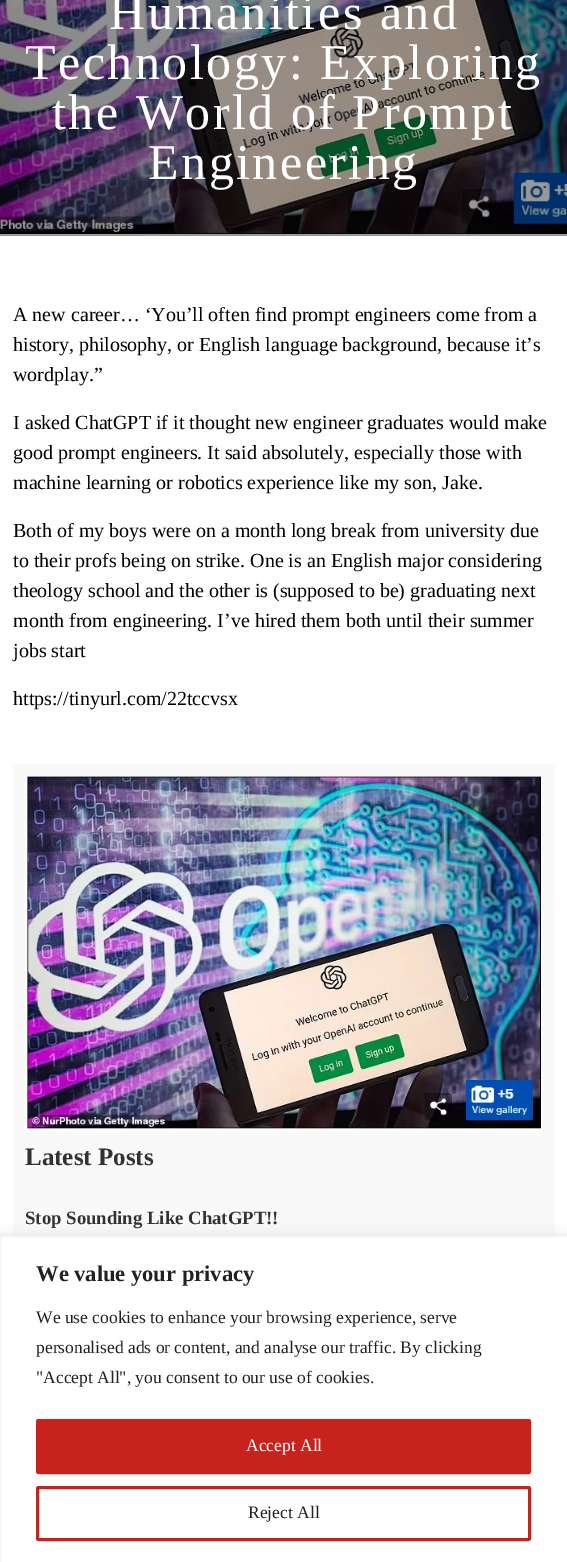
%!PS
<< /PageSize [567 1562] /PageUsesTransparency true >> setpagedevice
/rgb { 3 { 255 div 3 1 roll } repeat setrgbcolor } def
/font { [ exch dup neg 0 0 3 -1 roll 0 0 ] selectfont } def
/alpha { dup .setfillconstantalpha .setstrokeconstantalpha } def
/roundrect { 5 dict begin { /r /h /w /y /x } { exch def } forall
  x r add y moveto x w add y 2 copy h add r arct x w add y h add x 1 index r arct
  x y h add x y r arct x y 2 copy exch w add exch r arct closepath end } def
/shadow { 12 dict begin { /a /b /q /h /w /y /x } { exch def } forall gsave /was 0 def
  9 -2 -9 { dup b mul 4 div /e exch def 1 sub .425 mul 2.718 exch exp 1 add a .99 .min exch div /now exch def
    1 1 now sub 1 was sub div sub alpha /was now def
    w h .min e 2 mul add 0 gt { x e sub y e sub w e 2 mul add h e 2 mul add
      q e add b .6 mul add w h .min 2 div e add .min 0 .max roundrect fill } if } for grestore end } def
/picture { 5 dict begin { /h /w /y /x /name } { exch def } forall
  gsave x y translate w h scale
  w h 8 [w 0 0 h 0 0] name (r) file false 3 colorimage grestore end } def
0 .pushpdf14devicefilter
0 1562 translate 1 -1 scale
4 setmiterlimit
255 255 255 rgb
0 0 567 1562 rectfill
(img/1.rgb) 0 0 567 236 picture
249 249 249 rgb
13 764 542 472 rectfill
(img/2.rgb) 25 776 517 355 picture
172 171 171 rgb
0 1235 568 326 0 6 0.3 shadow
255 255 255 rgb
0.5 1236.5 moveto 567.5 1236.5 lineto 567.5 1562.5 lineto 0.5 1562.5 lineto closepath gsave fill grestore
244 244 244 rgb
stroke
200 34 28 rgb
37.5 1420.5 492 52 1 roundrect gsave fill grestore
3 setlinewidth
stroke
37.5 1487.5 492 52 1 roundrect stroke
/LiberationSerif-Regular 50 font
255 255 255 rgb
109 29 moveto 2.5 0 (Humanities and) ashow
25 79 moveto 2.5 0 (Technology: Exploring) ashow
52 129 moveto 2.5 0 (the World of Prompt) ashow
148 179 moveto 2.5 0 (Engineering) ashow
/LiberationSerif-Regular 20 font
0 0 0 rgb
[
  [(A new career… ‘You’ll often find prompt engineers come from a) 13 321]
  [(history, philosophy, or English language background, because it’s) 13 351]
  [(wordplay.”) 13 381]
  [(I asked ChatGPT if it thought new engineer graduates would make) 13 429]
  [(good prompt engineers. It said absolutely, especially those with) 13 459]
  [(machine learning or robotics experience like my son, Jake.) 13 489]
  [(Both of my boys were on a month long break from university due) 13 537]
  [(to their profs being on strike. One is an English major considering) 13 567]
  [(theology school and the other is \(supposed to be\) graduating next) 13 597]
  [(month from engineering. I’ve hired them both until their summer) 13 627]
  [(jobs start) 13 657]
  [(https://tinyurl.com/22tccvsx) 13 705]
] { aload pop moveto show } forall
/LiberationSerif-Bold 25 font
50 50 50 rgb
25 1165 moveto (Latest Posts) show
/LiberationSerif-Bold 18.75 font
25 1224 moveto (Stop Sounding Like ChatGPT!!) show
/LiberationSerif-Bold 22.5 font
33 33 33 rgb
36 1281 moveto (We value your privacy) show
/LiberationSerif-Regular 17.5 font
[
  [(We use cookies to enhance your browsing experience, serve) 36 1323]
  [(personalised ads or content, and analyse our traffic. By clicking) 36 1353]
  [("Accept All", you consent to our use of cookies.) 36 1383]
] { aload pop moveto show } forall
255 255 255 rgb
246 1451 moveto (Accept All) show
33 33 33 rgb
248 1518 moveto (Reject All) show
.poppdf14devicefilter showpage
